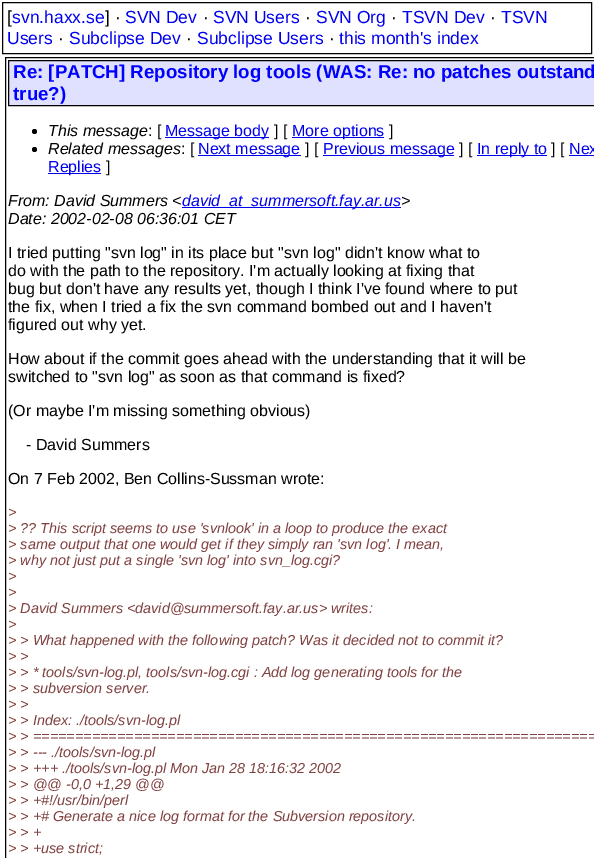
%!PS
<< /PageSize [594 858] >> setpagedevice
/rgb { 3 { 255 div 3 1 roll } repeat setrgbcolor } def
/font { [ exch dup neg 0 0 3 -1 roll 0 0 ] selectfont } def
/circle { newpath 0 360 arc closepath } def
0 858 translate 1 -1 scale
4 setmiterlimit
255 255 255 rgb
0 0 594 858 rectfill
0 0 0 rgb
2.5 2.5 589 51 rectstroke
5.5 57.5 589 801 rectstroke
224 224 255 rgb
8.5 60.5 moveto 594.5 60.5 lineto 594.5 105.5 lineto 8.5 105.5 lineto closepath gsave fill grestore
0 0 0 rgb
stroke
34.5 131.5 2.5 circle fill
0 0 238 rgb
165 137 104 1 rectfill
292 137 92 1 rectfill
0 0 0 rgb
34.5 149.5 2.5 circle fill
[
  [198 155 103 1 0 0 238]
  [323 155 131 1 0 0 238]
  [477 155 70 1 0 0 238]
  [569 155 25 1 0 0 238]
  [48 173 53 1 0 0 238]
  [182 207 219 1 0 0 238]
] { aload pop rgb rectfill } forall
/LiberationSans-Regular 17.5 font
0 0 0 rgb
7 23 moveto ([) show
0 0 238 rgb
12 23 moveto (svn.haxx.se) show
0 0 0 rgb
105 23 moveto (] ·) show
0 0 238 rgb
125 23 moveto (SVN Dev) show
0 0 0 rgb
203 23 moveto (·) show
0 0 238 rgb
213 23 moveto (SVN Users) show
0 0 0 rgb
305 23 moveto (·) show
0 0 238 rgb
316 23 moveto (SVN Org) show
0 0 0 rgb
391 23 moveto (·) show
0 0 238 rgb
402 23 moveto (TSVN Dev) show
0 0 0 rgb
490 23 moveto (·) show
0 0 238 rgb
501 23 moveto (TSVN) show
7 44 moveto (Users) show
0 0 0 rgb
58 44 moveto (·) show
0 0 238 rgb
69 44 moveto (Subclipse Dev) show
0 0 0 rgb
186 44 moveto (·) show
0 0 238 rgb
197 44 moveto (Subclipse Users) show
0 0 0 rgb
329 44 moveto (·) show
0 0 238 rgb
339 44 moveto (this month's index) show
/LiberationSans-Bold 18.7 font
0 0 255 rgb
13 78 moveto (Re: [PATCH] Repository log tools \(WAS: Re: no patches outstand) show
13 100 moveto (true?\)) show
/LiberationSans-Italic 16 font
0 0 0 rgb
48 136 moveto (This message) show
/LiberationSans-Regular 16 font
148 136 moveto (: [) show
0 0 238 rgb
165 136 moveto (Message body) show
0 0 0 rgb
274 136 moveto (] [) show
0 0 238 rgb
292 136 moveto (More options) show
0 0 0 rgb
389 136 moveto (]) show
/LiberationSans-Italic 16 font
48 154 moveto (Related messages) show
/LiberationSans-Regular 16 font
181 154 moveto (: [) show
0 0 238 rgb
198 154 moveto (Next message) show
0 0 0 rgb
305 154 moveto (] [) show
0 0 238 rgb
323 154 moveto (Previous message) show
0 0 0 rgb
459 154 moveto (] [) show
0 0 238 rgb
477 154 moveto (In reply to) show
0 0 0 rgb
551 154 moveto (] [) show
0 0 238 rgb
569 154 moveto (Nex) show
48 172 moveto (Replies) show
0 0 0 rgb
106 172 moveto (]) show
/LiberationSans-Italic 16 font
8 206 moveto (From: David Summers <) show
0 0 238 rgb
182 206 moveto (david_at_summersoft.fay.ar.us) show
0 0 0 rgb
401 206 moveto (>) show
8 224 moveto (Date: 2002-02-08 06:36:01 CET) show
/LiberationSans-Regular 16 font
[
  [(I tried putting "svn log" in its place but "svn log" didn't know what to) 8 258]
  [(do with the path to the repository. I'm actually looking at fixing that) 8 276]
  [(bug but don't have any results yet, though I think I've found where to put) 8 294]
  [(the fix, when I tried a fix the svn command bombed out and I haven't) 8 312]
  [(figured out why yet.) 8 330]
  [(How about if the commit goes ahead with the understanding that it will be) 8 364]
  [(switched to "svn log" as soon as that command is fixed?) 8 382]
  [(\(Or maybe I'm missing something obvious\)) 8 416]
  [(- David Summers) 26 450]
  [(On 7 Feb 2002, Ben Collins-Sussman wrote:) 8 484]
] { aload pop moveto show } forall
/LiberationSans-Italic 14.4 font
128 64 64 rgb
[
  [(>) 8 517]
  [(> ?? This script seems to use 'svnlook' in a loop to produce the exact) 8 533]
  [(> same output that one would get if they simply ran 'svn log'. I mean,) 8 549]
  [(> why not just put a single 'svn log' into svn_log.cgi?) 8 565]
  [(>) 8 581]
  [(>) 8 597]
  [(> David Summers <david@summersoft.fay.ar.us> writes:) 8 613]
  [(>) 8 629]
  [(> > What happened with the following patch? Was it decided not to commit it?) 8 645]
  [(> >) 8 661]
  [(> > * tools/svn-log.pl, tools/svn-log.cgi : Add log generating tools for the) 8 677]
  [(> > subversion server.) 8 693]
  [(> >) 8 709]
  [(> > Index: ./tools/svn-log.pl) 8 725]
  [(> > ===================================================================) 8 741]
  [(> > --- ./tools/svn-log.pl) 8 757]
  [(> > +++ ./tools/svn-log.pl Mon Jan 28 18:16:32 2002) 8 773]
  [(> > @@ -0,0 +1,29 @@) 8 789]
  [(> > +#!/usr/bin/perl) 8 805]
  [(> > +# Generate a nice log format for the Subversion repository.) 8 821]
  [(> > +) 8 837]
  [(> > +use strict;) 8 853]
] { aload pop moveto show } forall
showpage
